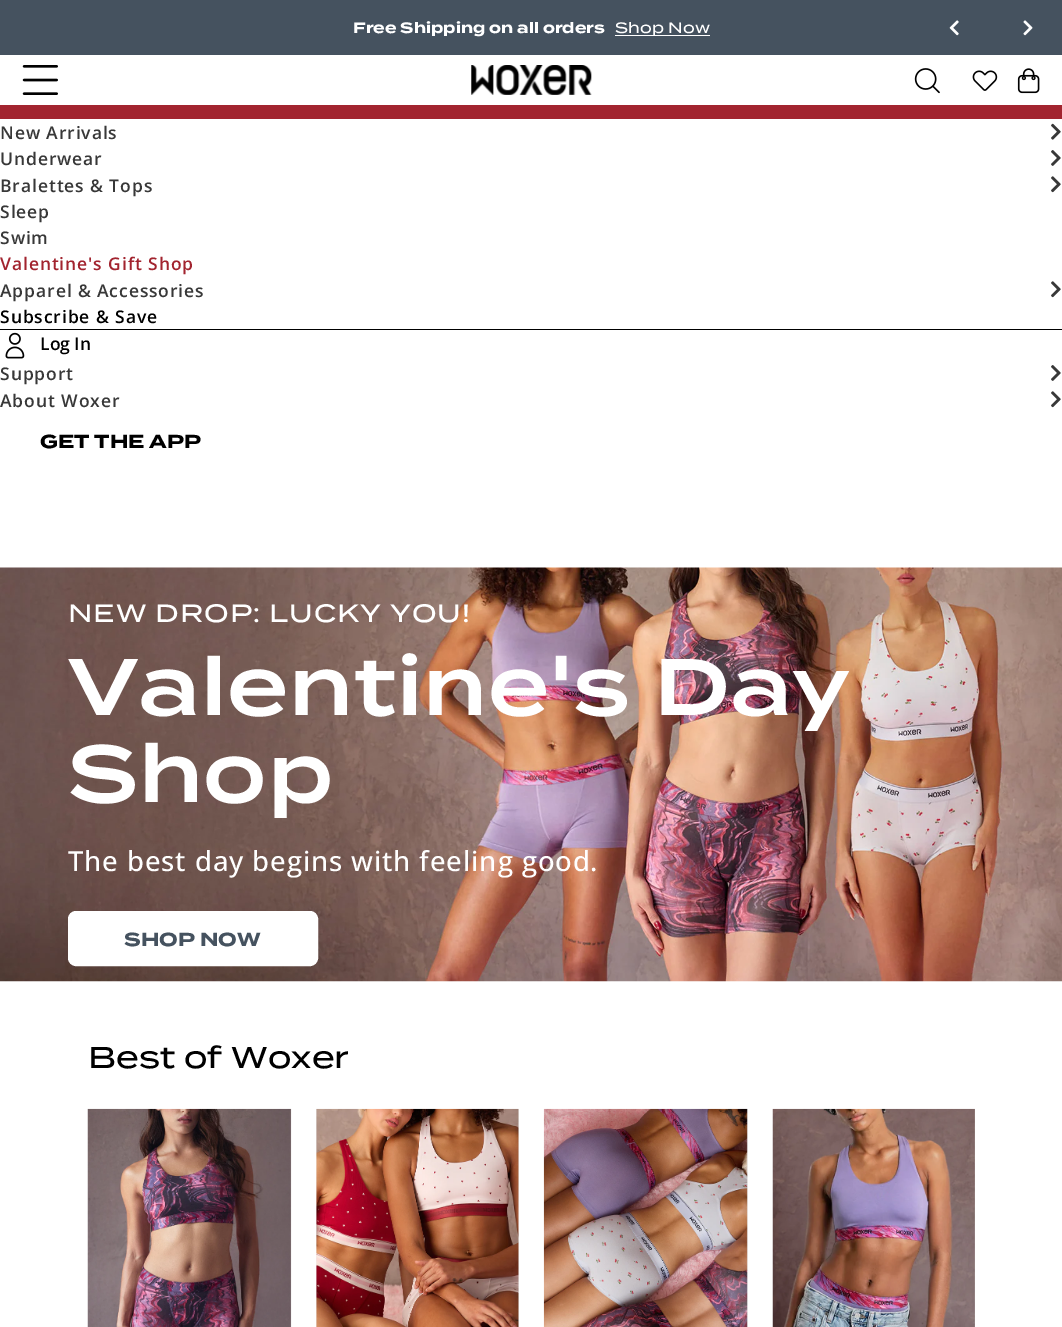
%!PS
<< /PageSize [1062 1327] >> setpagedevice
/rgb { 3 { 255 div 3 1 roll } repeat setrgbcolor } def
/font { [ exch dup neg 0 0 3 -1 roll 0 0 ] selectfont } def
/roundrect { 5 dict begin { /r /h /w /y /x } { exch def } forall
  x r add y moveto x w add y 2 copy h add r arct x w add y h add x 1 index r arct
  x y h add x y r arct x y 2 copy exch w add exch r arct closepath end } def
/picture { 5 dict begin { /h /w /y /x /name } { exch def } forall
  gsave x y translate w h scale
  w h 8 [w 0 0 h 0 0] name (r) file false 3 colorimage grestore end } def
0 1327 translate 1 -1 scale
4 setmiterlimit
255 255 255 rgb
0 0 1062 1327 rectfill
69 82 95 rgb
0 0 1062 55 rectfill
255 255 255 rgb
615 35 95 1 rectfill
(img/1.rgb) 949 20 10 16 picture
(img/2.rgb) 1023 20 10 16 picture
(img/3.rgb) 22 65 36 30 picture
(img/4.rgb) 471 65 121 30 picture
(img/5.rgb) 914 68 26 26 picture
(img/6.rgb) 972 70 26 21 picture
(img/7.rgb) 1017 68 23 26 picture
0 0 0 rgb
0 329 1062 1 rectfill
162 36 47 rgb
0 105 1062 14 rectfill
(img/8.rgb) 1051 123 10 17 picture
(img/9.rgb) 1051 150 10 16 picture
(img/10.rgb) 1051 176 10 17 picture
(img/10.rgb) 1051 281 10 17 picture
(img/11.rgb) 5 332 20 27 picture
(img/9.rgb) 1051 365 10 16 picture
(img/10.rgb) 1051 391 10 17 picture
(img/12.rgb) 0 567 1062 415 picture
255 255 255 rgb
69.5 912.5 247 52 6.5 roundrect gsave fill grestore
3 setlinewidth
stroke
(img/13.rgb) 87 1108 205 219 picture
238 238 238 rgb
316 1109 203 218 rectfill
(img/14.rgb) 316 1108 203 219 picture
746 1109 2 218 rectfill
(img/15.rgb) 543 1108 205 219 picture
(img/16.rgb) 772 1108 203 219 picture
/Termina-Bold 15 font
255 255 255 rgb
353 33 moveto (Free Shipping on all orders) show
/Termina-Medium 15 font
615 33 moveto (Shop Now) show
/OpenSans-SemiBold 17.5 font
56 56 56 rgb
0 139 moveto 0.9 0 (New Arrivals) ashow
0 165 moveto 0.9 0 (Underwear) ashow
0 192 moveto 0.9 0 (Bralettes & Tops) ashow
0 218 moveto 0.9 0 (Sleep) ashow
0 244 moveto 0.9 0 (Swim) ashow
162 36 47 rgb
0 270 moveto 0.9 0 (Valentine's Gift Shop) ashow
56 56 56 rgb
0 297 moveto 0.9 0 (Apparel & Accessories) ashow
0 0 0 rgb
0 323 moveto 0.9 0 (Subscribe & Save) ashow
40 350 moveto (Log In) show
56 56 56 rgb
0 380 moveto 0.9 0 (Support) ashow
0 407 moveto 0.9 0 (About Woxer) ashow
/Termina-Bold 18.75 font
0 0 0 rgb
40 448 moveto (GET THE APP) show
/Termina-Medium 25 font
255 255 255 rgb
68 622 moveto 0.9 0 (NEW DROP: LUCKY YOU!) ashow
/Termina-SemiBold 80 font
68 715 moveto 0.9 0 (Valentine's Day) ashow
68 802 moveto 0.9 0 (Shop) ashow
/OpenSans-Medium 27.5 font
68 871 moveto 0.9 0 (The best day begins with feeling good.) ashow
/Termina-Bold 18.75 font
69 82 95 rgb
124 946 moveto (SHOP NOW) show
/Termina-Medium 30 font
0 0 0 rgb
88 1068 moveto (Best of Woxer) show
showpage
